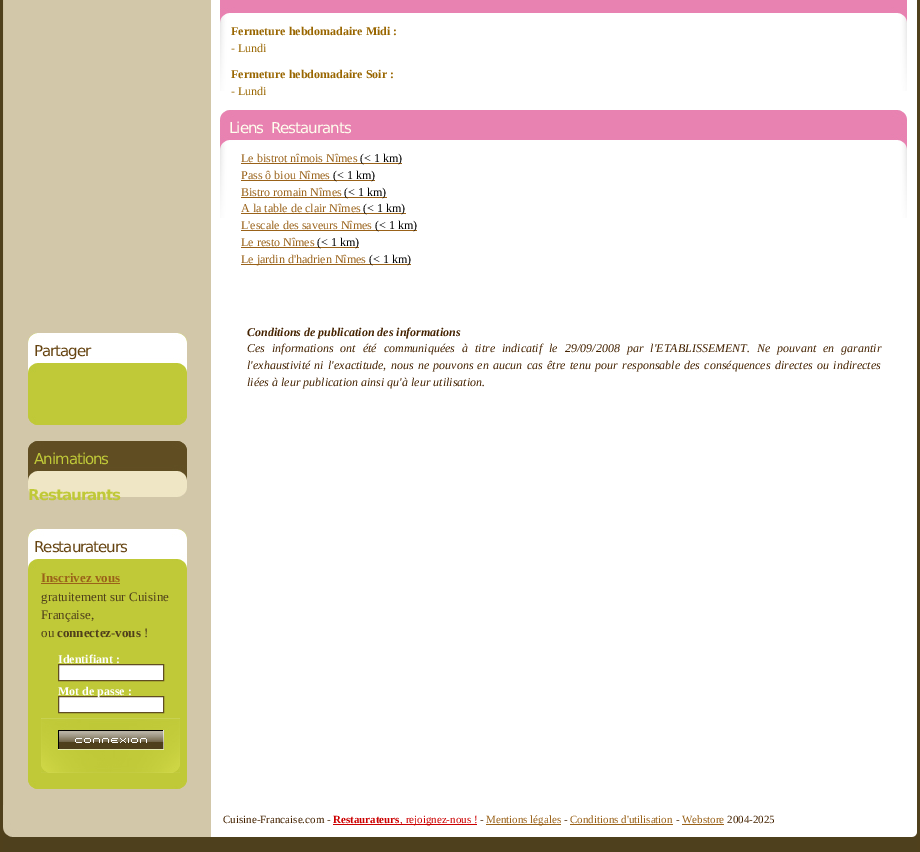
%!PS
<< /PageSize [920 852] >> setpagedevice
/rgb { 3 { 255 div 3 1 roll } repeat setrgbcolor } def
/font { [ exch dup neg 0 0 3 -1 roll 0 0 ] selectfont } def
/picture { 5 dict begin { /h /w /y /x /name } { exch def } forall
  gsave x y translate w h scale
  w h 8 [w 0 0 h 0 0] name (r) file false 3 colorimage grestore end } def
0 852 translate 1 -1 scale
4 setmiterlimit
79 64 28 rgb
0 0 920 852 rectfill
(img/1.rgb) 3 0 914 805 picture
(img/2.rgb) 220 0 687 91 picture
(img/3.rgb) 220 110 687 108 picture
[
  [241 163 161 1 154 98 25]
  [241 180 134 1 154 98 25]
  [241 197 146 1 154 98 25]
  [241 213 165 1 154 98 25]
  [241 230 176 1 154 98 25]
  [241 247 118 1 154 98 25]
  [241 264 170 1 154 98 25]
  [28 373 159 43 192 201 56]
] { aload pop rgb rectfill } forall
(img/4.rgb) 28 416 159 9 picture
(img/5.rgb) 28 333 159 40 picture
239 230 197 rgb
28 481 159 7 rectfill
(img/6.rgb) 28 488 159 9 picture
(img/7.rgb) 28 441 159 40 picture
192 201 56 rgb
28 569 159 211 rectfill
(img/4.rgb) 28 780 159 9 picture
(img/5.rgb) 28 529 159 40 picture
154 98 25 rgb
41 583 79 1 rectfill
255 255 255 rgb
58.5 664.5 moveto 163.5 664.5 lineto 163.5 680.5 lineto 58.5 680.5 lineto closepath gsave fill grestore
96 77 34 rgb
stroke
255 255 255 rgb
58.5 696.5 moveto 163.5 696.5 lineto 163.5 712.5 lineto 58.5 712.5 lineto closepath gsave fill grestore
96 77 34 rgb
stroke
(img/8.rgb) 41 718 139 55 picture
(img/9.rgb) 3 805 914 47 picture
[
  [333 824 144 1 204 0 0]
  [486 824 75 1 154 98 25]
  [570 824 103 1 154 98 25]
  [682 824 42 1 154 98 25]
] { aload pop rgb rectfill } forall
/LiberationSerif-Bold 12 font
153 102 0 rgb
231 35 moveto (Fermeture hebdomadaire Midi :) show
/LiberationSerif-Regular 12 font
231 52 moveto (- Lundi) show
/LiberationSerif-Bold 12 font
231 78 moveto (Fermeture hebdomadaire Soir :) show
/LiberationSerif-Regular 12 font
231 95 moveto (- Lundi) show
/DejaVuSans-Regular 15 font
255 255 238 rgb
229 133 moveto 4 0 32 -1 0 (Liens Restaurants) awidthshow
/LiberationSerif-Regular 12 font
154 98 25 rgb
241 162 moveto (Le bistrot nîmois Nîmes) show
0 0 0 rgb
360 162 moveto (\(< 1 km\)) show
154 98 25 rgb
241 179 moveto (Pass ô biou Nîmes) show
0 0 0 rgb
333 179 moveto (\(< 1 km\)) show
154 98 25 rgb
241 196 moveto (Bistro romain Nîmes) show
0 0 0 rgb
344 196 moveto (\(< 1 km\)) show
154 98 25 rgb
241 212 moveto (A la table de clair Nîmes) show
0 0 0 rgb
363 212 moveto (\(< 1 km\)) show
154 98 25 rgb
241 229 moveto (L'escale des saveurs Nîmes) show
0 0 0 rgb
375 229 moveto (\(< 1 km\)) show
154 98 25 rgb
241 246 moveto (Le resto Nîmes) show
0 0 0 rgb
317 246 moveto (\(< 1 km\)) show
154 98 25 rgb
241 263 moveto (Le jardin d'hadrien Nîmes) show
0 0 0 rgb
369 263 moveto (\(< 1 km\)) show
/LiberationSerif-BoldItalic 12 font
68 34 0 rgb
247 336 moveto (Conditions de publication des informations) show
/LiberationSerif-Italic 12 font
247 352 moveto 4 0 32 (Ces informations ont été communiquées à titre indicatif le) widthshow
565 352 moveto 4 0 32 (29/09/2008 par l'ETABLISSEMENT.) widthshow
757 352 moveto 4 0 32 (Ne pouvant en garantir) widthshow
247 369 moveto 1.3 0 32 (l'exhaustivité ni l'exactitude, nous ne pouvons en aucun cas être tenu pour responsable des conséquences directes ou indirectes) widthshow
247 386 moveto (liées à leur publication ainsi qu'à leur utilisation.) show
/DejaVuSans-Regular 15 font
102 68 17 rgb
34 356 moveto -1 0 (Partager) ashow
192 201 56 rgb
34 464 moveto -1 0 (Animations) ashow
/DejaVuSans-Bold 15 font
28 500 moveto -1 0 (Restaurants) ashow
/DejaVuSans-Regular 15 font
102 68 17 rgb
34 552 moveto -1 0 (Restaurateurs) ashow
/LiberationSerif-Bold 13 font
154 98 25 rgb
41 582 moveto (Inscrivez vous) show
/LiberationSerif-Regular 13 font
79 63 27 rgb
[
  [(gratuitement sur Cuisine) 41 601]
  [(Française,) 41 619]
  [(ou) 41 637]
] { aload pop moveto show } forall
/LiberationSerif-Bold 13 font
57 637 moveto (connectez-vous) show
/LiberationSerif-Regular 13 font
144 637 moveto (!) show
/LiberationSerif-Bold 12 font
255 255 255 rgb
58 663 moveto (Identifiant :) show
58 695 moveto (Mot de passe :) show
/LiberationSerif-Regular 11 font
68 34 0 rgb
223 823 moveto (Cuisine-Francaise.com -) show
/LiberationSerif-Bold 11 font
204 0 0 rgb
333 823 moveto (Restaurateurs) show
/LiberationSerif-Regular 11 font
400 823 moveto (, rejoignez-nous !) show
68 34 0 rgb
480 823 moveto (-) show
154 98 25 rgb
486 823 moveto (Mentions légales) show
68 34 0 rgb
564 823 moveto (-) show
154 98 25 rgb
570 823 moveto (Conditions d'utilisation) show
68 34 0 rgb
676 823 moveto (-) show
154 98 25 rgb
682 823 moveto (Webstore) show
68 34 0 rgb
727 823 moveto (2004-2025) show
showpage
